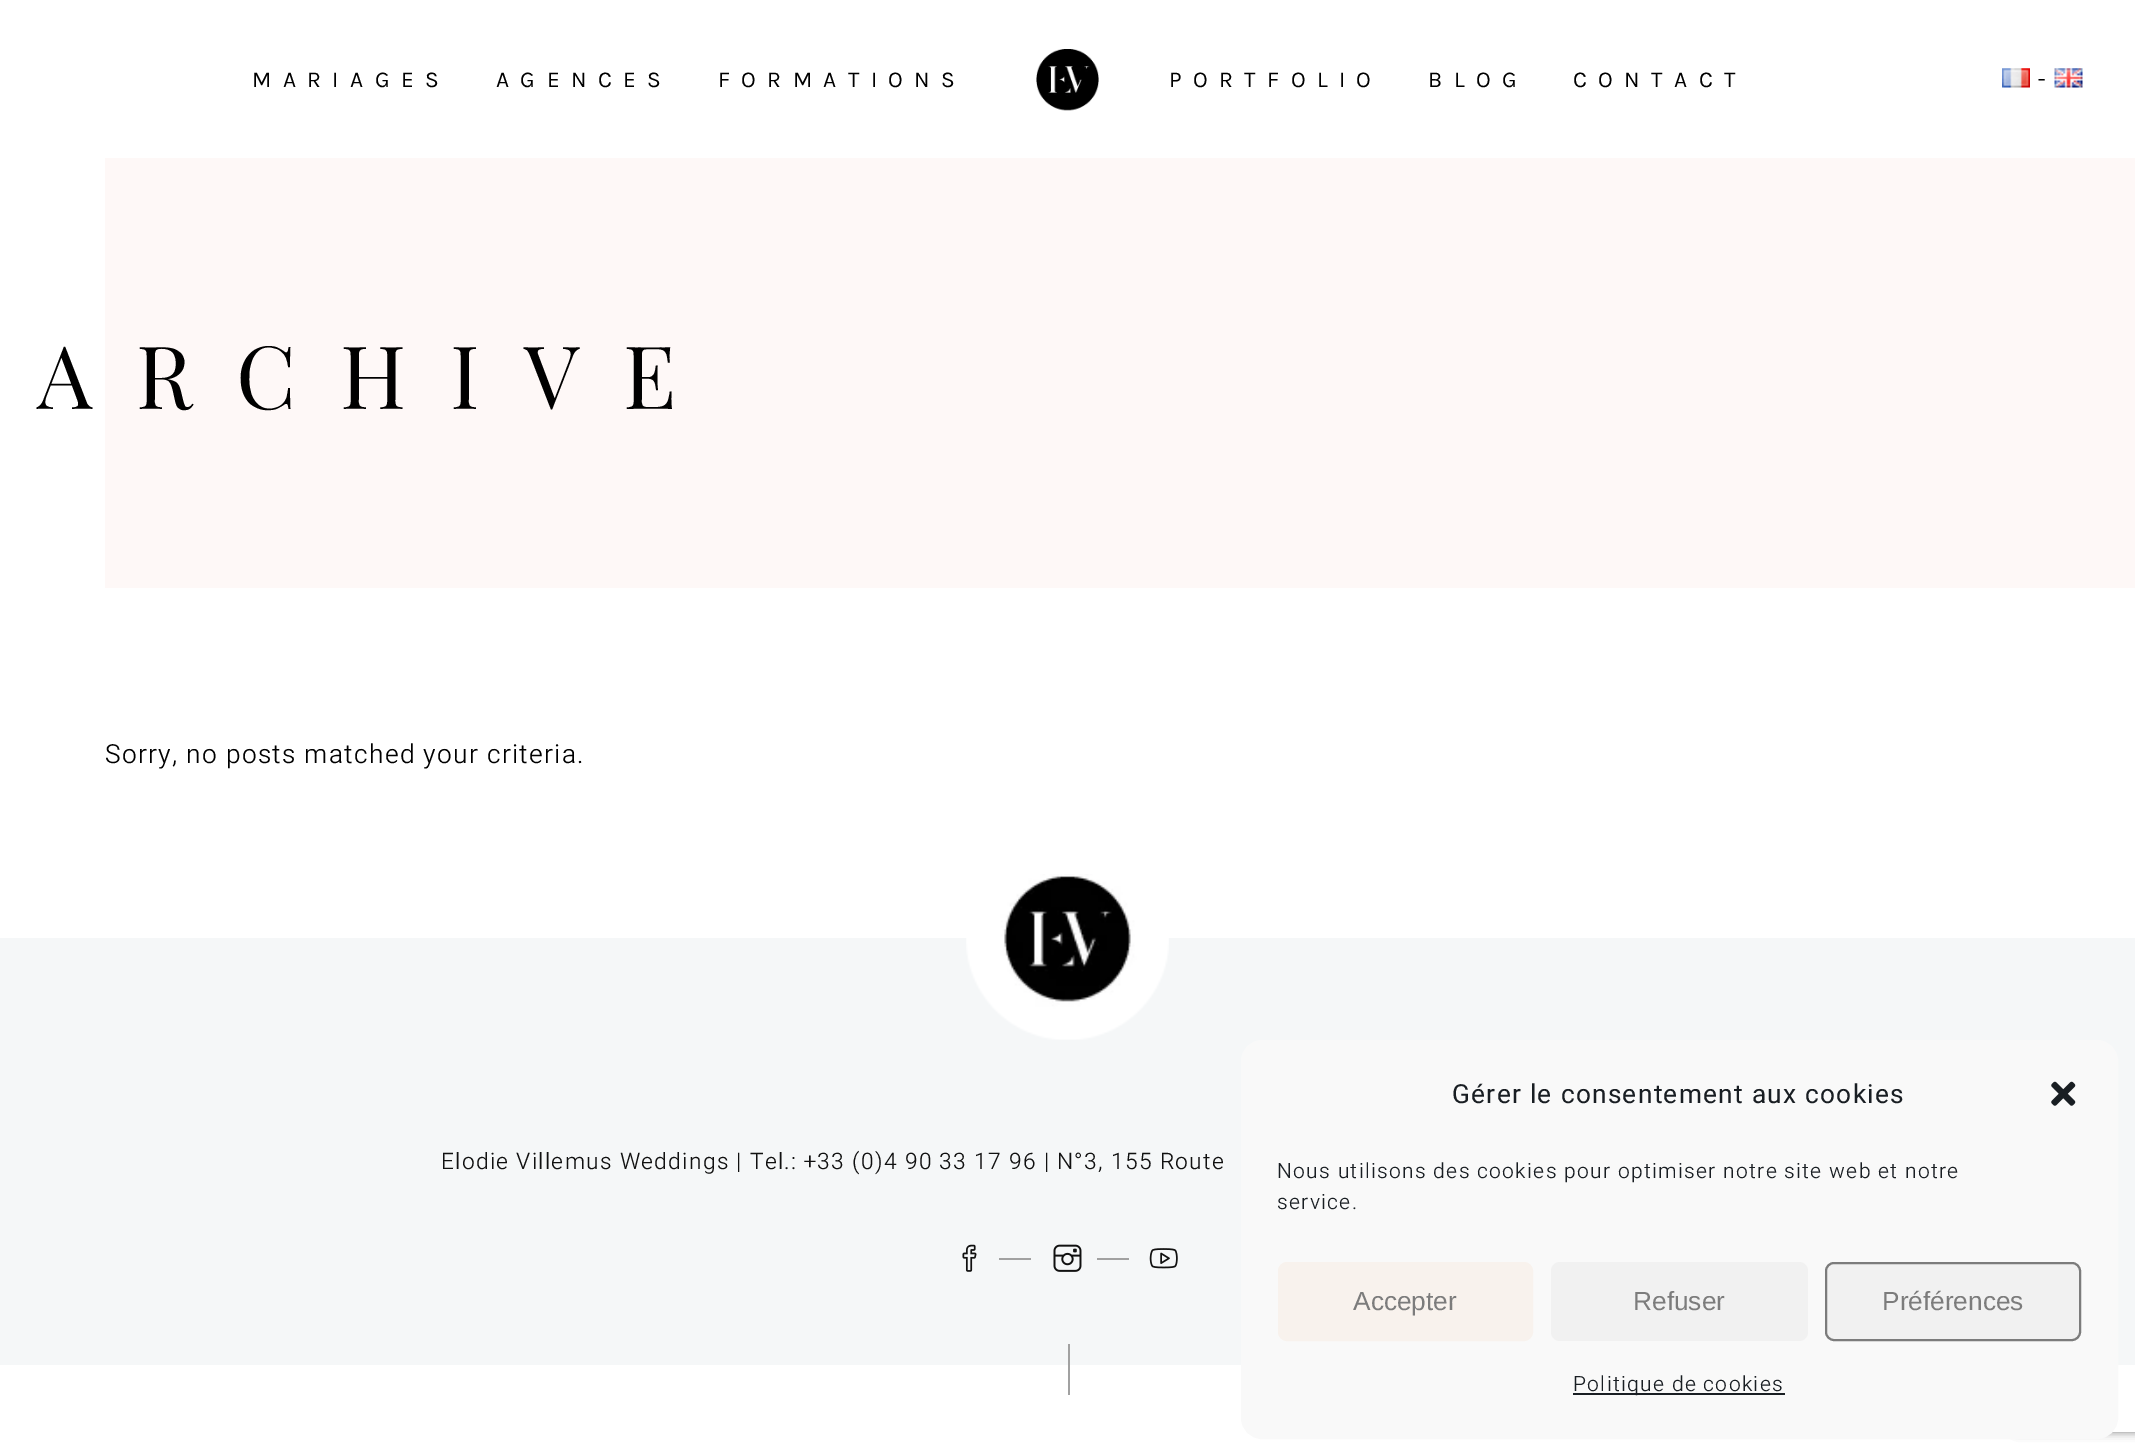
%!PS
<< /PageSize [2135 1456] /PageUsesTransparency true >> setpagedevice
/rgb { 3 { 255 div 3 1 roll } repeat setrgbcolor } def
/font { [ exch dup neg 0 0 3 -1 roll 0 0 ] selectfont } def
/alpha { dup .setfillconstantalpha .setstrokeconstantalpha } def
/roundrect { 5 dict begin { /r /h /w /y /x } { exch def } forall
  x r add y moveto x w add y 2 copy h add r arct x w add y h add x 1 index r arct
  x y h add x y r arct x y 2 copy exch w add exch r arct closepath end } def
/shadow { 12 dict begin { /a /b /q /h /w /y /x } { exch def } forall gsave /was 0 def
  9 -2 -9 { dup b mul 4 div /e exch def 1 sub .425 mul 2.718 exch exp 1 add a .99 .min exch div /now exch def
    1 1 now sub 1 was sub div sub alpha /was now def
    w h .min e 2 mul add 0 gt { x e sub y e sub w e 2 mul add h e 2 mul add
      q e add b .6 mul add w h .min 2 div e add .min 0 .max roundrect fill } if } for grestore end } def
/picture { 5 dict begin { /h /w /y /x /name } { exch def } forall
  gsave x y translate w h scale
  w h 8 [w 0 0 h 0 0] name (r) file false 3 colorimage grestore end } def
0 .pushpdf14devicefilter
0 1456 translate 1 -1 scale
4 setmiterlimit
255 255 255 rgb
0 0 2135 1456 rectfill
(img/1.rgb) 1036 49 63 62 picture
(img/2.rgb) 2002 68 28 20 picture
(img/3.rgb) 2054 68 29 20 picture
254 248 247 rgb
105 158 2030 430 rectfill
gsave
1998 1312 moveto 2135 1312 lineto 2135 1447 lineto 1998 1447 lineto closepath 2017 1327 moveto 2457 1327 lineto 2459 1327 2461 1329 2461 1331 curveto 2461 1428 lineto 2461 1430 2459 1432 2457 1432 curveto 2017 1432 lineto 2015 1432 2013 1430 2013 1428 curveto 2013 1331 lineto 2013 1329 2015 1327 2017 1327 curveto closepath eoclip newpath
128 128 128 rgb
2013 1327 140 105 4 4.5 1 shadow
grestore
245 247 248 rgb
0 938 2135 427 rectfill
255 255 255 rgb
2004 1365 9 30 rectfill
(img/4.rgb) 966 874 203 166 picture
(img/5.rgb) 962 1244 15 28 picture
161 161 161 rgb
999 1258 32 2 rectfill
(img/6.rgb) 1053 1244 29 28 picture
1097 1258 32 2 rectfill
(img/7.rgb) 1149 1248 29 21 picture
1068 1344 2 51 rectfill
249 249 249 rgb
1242 1041 875 397 20 roundrect gsave fill grestore
2 setlinewidth
stroke
(img/8.rgb) 2051 1081 25 25 picture
248 242 237 rgb
1279 1263 253 77 8 roundrect gsave fill grestore
stroke
241 241 241 rgb
1551 1262 257 79 9 roundrect fill
1826 1263 254 77 8 roundrect gsave fill grestore
124 124 124 rgb
stroke
25 30 35 rgb
1573 1393 212 2 rectfill
/Karla-Regular 22.75 font
0 0 0 rgb
252 87 moveto 11.4 0 (MARIAGES) ashow
496 87 moveto 11.4 0 (AGENCES) ashow
718 87 moveto 11.4 0 (FORMATIONS) ashow
1169 87 moveto 11.4 0 (PORTFOLIO) ashow
1428 87 moveto 11.4 0 (BLOG) ashow
1573 87 moveto 11.4 0 (CONTACT) ashow
/Heebo-Light 26.25 font
2038 88 moveto 1.3 0 (-) ashow
/PlayfairDisplay-Regular 87.5 font
37 409 moveto 43.75 0 (ARCHIVE) ashow
/Heebo-Light 26.25 font
105 763 moveto 1.3 0 (Sorry, no posts matched your criteria.) ashow
/Heebo-Light 22.75 font
17 17 17 rgb
441 1169 moveto 1.3 0 (Elodie Villemus Weddings | Tel.: +33 \(0\)4 90 33 17 96 | N°3, 155 Route) ashow
/Heebo-Regular 26.25 font
25 30 35 rgb
1452 1103 moveto 1.3 0 (Gérer le consentement aux cookies) ashow
/Heebo-Light 21 font
1277 1178 moveto 1.3 0 (Nous utilisons des cookies pour optimiser notre site web et notre) ashow
1277 1209 moveto 1.3 0 (service.) ashow
/LiberationSans-Regular 26.25 font
124 124 124 rgb
[
  [(Accepter) 1353 1310]
  [(Refuser) 1633 1310]
  [(Préférences) 1882 1310]
] { aload pop moveto show } forall
/Heebo-Light 21 font
25 30 35 rgb
1573 1391 moveto 1.3 0 (Politique de cookies) ashow
.poppdf14devicefilter showpage
